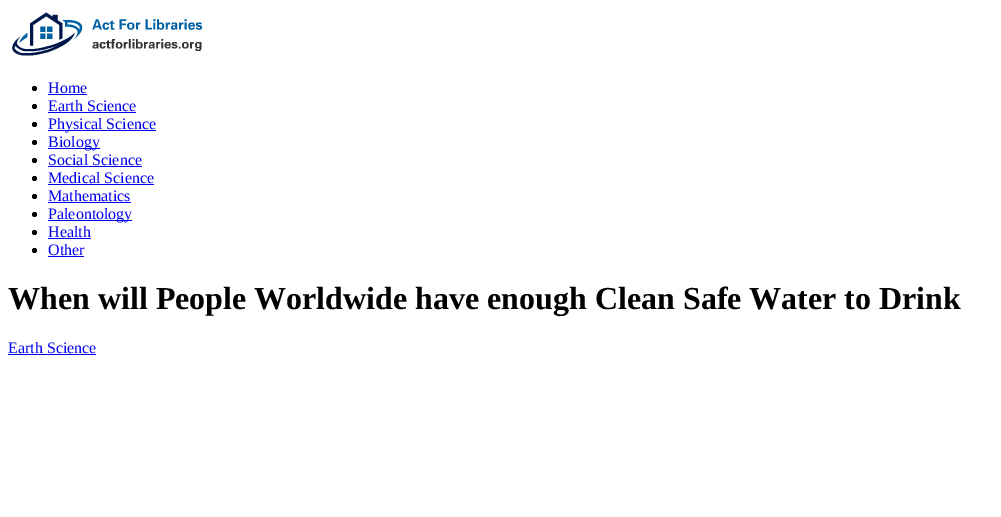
%!PS
<< /PageSize [1001 517] >> setpagedevice
/rgb { 3 { 255 div 3 1 roll } repeat setrgbcolor } def
/font { [ exch dup neg 0 0 3 -1 roll 0 0 ] selectfont } def
/circle { newpath 0 360 arc closepath } def
/picture { 5 dict begin { /h /w /y /x /name } { exch def } forall
  gsave x y translate w h scale
  w h 8 [w 0 0 h 0 0] name (r) file false 3 colorimage grestore end } def
0 517 translate 1 -1 scale
4 setmiterlimit
255 255 255 rgb
0 0 1001 517 rectfill
(img/1.rgb) 12 12 191 44 picture
0 0 0 rgb
34.5 88.5 2.5 circle fill
0 0 238 rgb
48 94 39 1 rectfill
0 0 0 rgb
34.5 106.5 2.5 circle fill
0 0 238 rgb
48 112 88 1 rectfill
0 0 0 rgb
34.5 124.5 2.5 circle fill
0 0 238 rgb
48 130 108 1 rectfill
0 0 0 rgb
34.5 142.5 2.5 circle fill
0 0 238 rgb
48 148 52 1 rectfill
0 0 0 rgb
34.5 160.5 2.5 circle fill
0 0 238 rgb
48 166 94 1 rectfill
0 0 0 rgb
34.5 178.5 2.5 circle fill
0 0 238 rgb
48 184 106 1 rectfill
0 0 0 rgb
34.5 196.5 2.5 circle fill
0 0 238 rgb
48 202 83 1 rectfill
0 0 0 rgb
34.5 214.5 2.5 circle fill
0 0 238 rgb
48 220 84 1 rectfill
0 0 0 rgb
34.5 232.5 2.5 circle fill
0 0 238 rgb
48 238 43 1 rectfill
0 0 0 rgb
34.5 250.5 2.5 circle fill
0 0 238 rgb
48 256 36 1 rectfill
8 354 88 1 rectfill
/LiberationSerif-Regular 16 font
[
  [(Home) 48 93]
  [(Earth Science) 48 111]
  [(Physical Science) 48 129]
  [(Biology) 48 147]
  [(Social Science) 48 165]
  [(Medical Science) 48 183]
  [(Mathematics) 48 201]
  [(Paleontology) 48 219]
  [(Health) 48 237]
  [(Other) 48 255]
] { aload pop moveto show } forall
/LiberationSerif-Bold 32 font
0 0 0 rgb
8 309 moveto (When will People Worldwide have enough Clean Safe Water to Drink) show
/LiberationSerif-Regular 16 font
0 0 238 rgb
8 353 moveto (Earth Science) show
showpage
